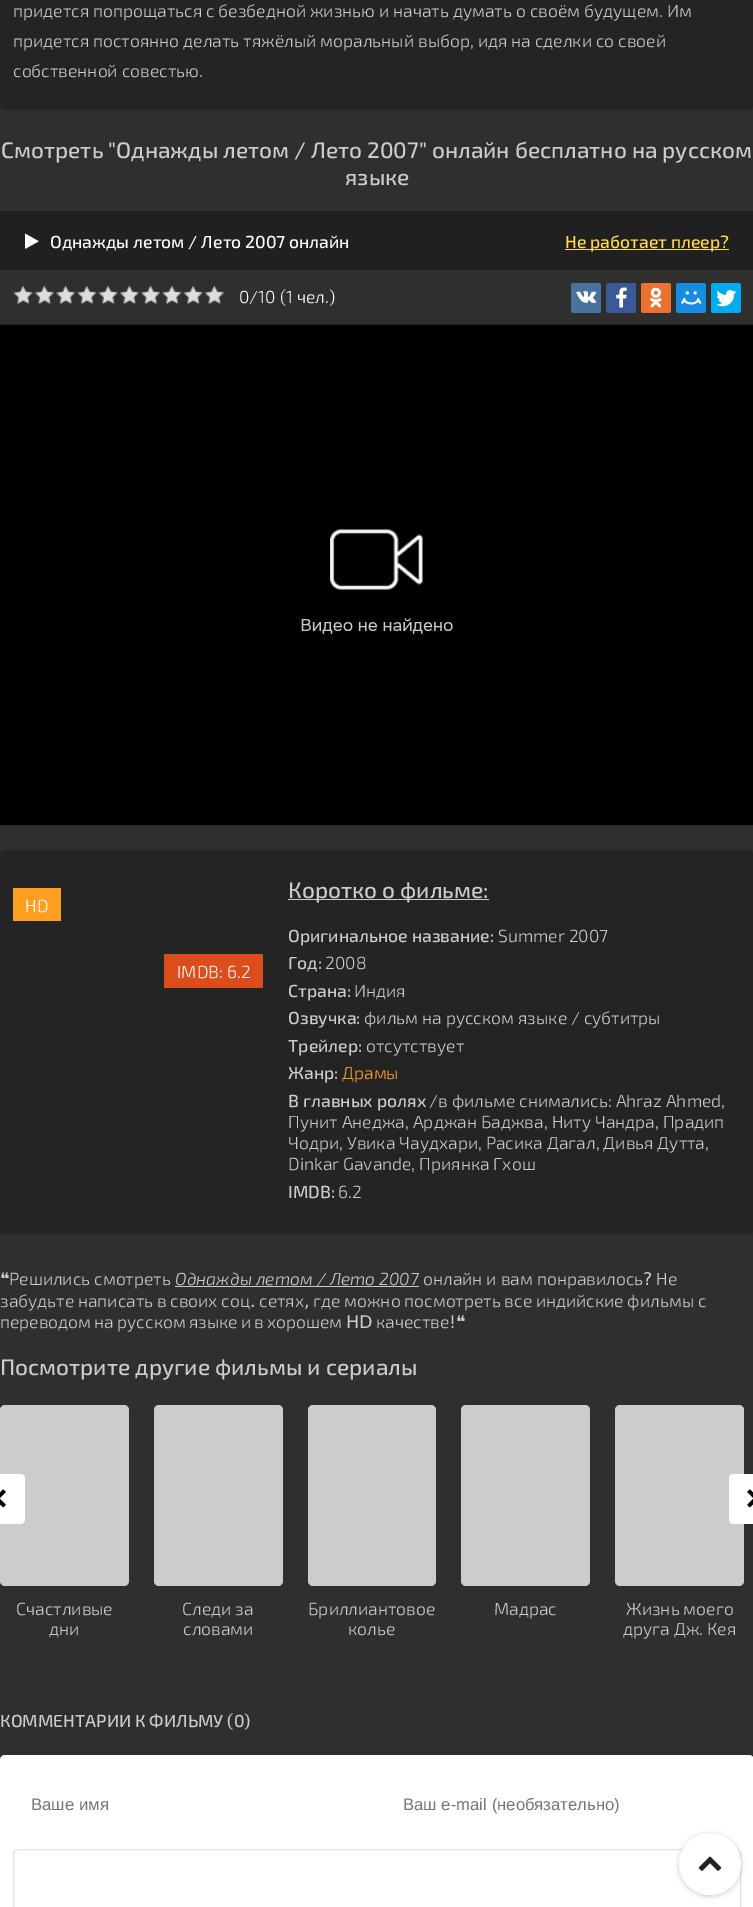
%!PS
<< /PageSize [753 1907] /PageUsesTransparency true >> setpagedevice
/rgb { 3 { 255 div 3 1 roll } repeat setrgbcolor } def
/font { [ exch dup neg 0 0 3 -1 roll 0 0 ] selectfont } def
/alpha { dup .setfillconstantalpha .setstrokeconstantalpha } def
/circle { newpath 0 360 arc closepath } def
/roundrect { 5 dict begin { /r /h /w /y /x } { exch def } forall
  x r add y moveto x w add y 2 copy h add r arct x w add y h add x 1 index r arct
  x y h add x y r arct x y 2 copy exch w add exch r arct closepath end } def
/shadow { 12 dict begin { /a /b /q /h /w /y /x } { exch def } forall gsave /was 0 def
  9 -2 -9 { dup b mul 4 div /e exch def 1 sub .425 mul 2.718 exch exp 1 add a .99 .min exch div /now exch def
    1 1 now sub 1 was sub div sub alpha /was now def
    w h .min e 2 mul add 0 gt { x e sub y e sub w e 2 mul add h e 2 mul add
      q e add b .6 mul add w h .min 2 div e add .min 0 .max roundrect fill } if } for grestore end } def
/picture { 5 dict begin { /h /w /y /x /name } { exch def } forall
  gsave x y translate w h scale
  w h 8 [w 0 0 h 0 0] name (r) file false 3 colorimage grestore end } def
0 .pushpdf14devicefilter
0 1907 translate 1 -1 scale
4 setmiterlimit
47 47 46 rgb
0 0 753 1907 rectfill
36 36 36 rgb
0 -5 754 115 5 roundrect fill
33 32 32 rgb
0 211 753 59 rectfill
(img/1.rgb) 25 233 14 16 picture
255 219 76 rgb
565 249 164 1 rectfill
(img/2.rgb) 13 285 214 20 picture
72 114 158 rgb
571 283 30 30 2.5 roundrect fill
(img/3.rgb) 576 291 21 12 picture
59 89 152 rgb
606 283 30 30 2.5 roundrect fill
(img/4.rgb) 616 287 11 21 picture
235 114 46 rgb
641 283 30 30 2.5 roundrect fill
(img/5.rgb) 650 287 12 21 picture
22 141 226 rgb
676 283 30 30 2.5 roundrect fill
(img/6.rgb) 681 291 21 14 picture
0 172 237 rgb
711 283 30 30 2.5 roundrect fill
(img/7.rgb) 716 290 20 17 picture
0 0 0 rgb
0 634 753 191 rectfill
(img/8.rgb) 0 324 753 310 picture
36 36 36 rgb
0 850 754 384 5 roundrect fill
[
  [288 899 201 1 204 204 204]
  [13 888 48 33 255 159 34]
  [164 954 99 34 221 77 27]
  [175 1286 244 1 204 204 204]
] { aload pop rgb rectfill } forall
0 1405 129 181 5 roundrect fill
255 255 255 rgb
0 1474 moveto 20 1474 lineto 23 1474 25 1476 25 1479 curveto 25 1519 lineto 25 1522 23 1524 20 1524 curveto 0 1524 lineto closepath fill
(img/9.rgb) 0 1489 6 19 picture
204 204 204 rgb
615 1405 129 181 5 roundrect fill
255 255 255 rgb
734 1474 moveto 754 1474 lineto 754 1524 lineto 734 1524 lineto 731 1524 729 1522 729 1519 curveto 729 1479 lineto 729 1476 731 1474 734 1474 curveto closepath fill
(img/10.rgb) 747 1489 6 19 picture
204 204 204 rgb
154 1405 129 181 5 roundrect fill
308 1405 128 181 5 roundrect fill
461 1405 129 181 5 roundrect fill
255 255 255 rgb
0 1755 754 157 5 roundrect fill
227 227 227 rgb
13.5 1849.5 727 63 4.5 roundrect stroke
0 0 0 rgb
679 1834 62 62 31 2.5 0.2 shadow
255 255 255 rgb
710 1864 31 circle fill
(img/11.rgb) 698 1856 24 15 picture
/Exo2-Light 17.5 font
204 204 204 rgb
[
  [(придется попрощаться с безбедной жизнью и начать думать о своём будущем. Им) 13 17]
  [(придется постоянно делать тяжёлый моральный выбор, идя на сделки со своей) 13 47]
  [(собственной совестью.) 13 77]
] { aload pop moveto show } forall
/Exo2-Medium 22.5 font
1 158 moveto (Смотреть "Однажды летом / Лето 2007" онлайн бесплатно на русском) show
345 185 moveto (языке) show
/Exo2-Medium 17.5 font
255 255 255 rgb
50 248 moveto (Однажды летом / Лето 2007 онлайн) show
255 219 76 rgb
565 248 moveto (Не работает плеер?) show
/Exo2-Light 17.5 font
255 255 255 rgb
239 303 moveto (0/10 \(1 чeл.\)) show
/Exo2-Medium 22.5 font
204 204 204 rgb
288 898 moveto (Коротко о фильме:) show
/Exo2-Light 17.5 font
255 255 255 rgb
25 912 moveto (HD) show
177 978 moveto (IMDB: 6.2) show
/Exo2-Medium 17.5 font
204 204 204 rgb
288 942 moveto (Оригинальное название:) show
/Exo2-Light 17.5 font
498 942 moveto (Summer 2007) show
/Exo2-Medium 17.5 font
288 969 moveto (Год:) show
/Exo2-Light 17.5 font
325 969 moveto (2008) show
/Exo2-Medium 17.5 font
288 997 moveto (Страна:) show
/Exo2-Light 17.5 font
354 997 moveto (Индия) show
/Exo2-Medium 17.5 font
288 1024 moveto (Озвучка:) show
/Exo2-Light 17.5 font
364 1024 moveto (фильм на русском языке / субтитры) show
/Exo2-Medium 17.5 font
288 1052 moveto (Трейлер:) show
/Exo2-Light 17.5 font
366 1052 moveto (отсутствует) show
/Exo2-Medium 17.5 font
288 1079 moveto (Жанр:) show
/Exo2-Light 17.5 font
255 159 34 rgb
342 1079 moveto (Драмы) show
/Exo2-Medium 17.5 font
204 204 204 rgb
288 1107 moveto (В главных ролях) show
/Exo2-Light 17.5 font
[
  [(/в фильме снимались: Ahraz Ahmed,) 429 1107]
  [(Пунит Анеджа, Арджан Баджва, Ниту Чандра, Прадип) 288 1128]
  [(Чодри, Увика Чаудхари, Расика Дагал, Дивья Дутта,) 288 1149]
  [(Dinkar Gavande, Приянка Гхош) 288 1170]
] { aload pop moveto show } forall
/Exo2-Medium 17.5 font
288 1198 moveto (IMDB:) show
/Exo2-Light 17.5 font
338 1198 moveto (6.2) show
/DejaVuSans-Regular 17.5 font
0 1285 moveto (❝) show
/Exo2-Light 17.5 font
9 1285 moveto (Решились смотреть) show
/Exo2-LightItalic 17.5 font
175 1285 moveto (Однажды летом / Лето 2007) show
/Exo2-Light 17.5 font
423 1285 moveto (онлайн и вам понравилось) show
/DejaVuSans-Regular 17.5 font
643 1285 moveto (?) show
/Exo2-Light 17.5 font
656 1285 moveto (Не) show
0 1307 moveto -0.25 0 32 (забудьте написать в своих соц) widthshow
/DejaVuSans-Regular 17.5 font
250 1307 moveto (.) show
/Exo2-Light 17.5 font
259 1307 moveto (сетях) show
/DejaVuSans-Regular 17.5 font
304 1307 moveto (,) show
/Exo2-Light 17.5 font
313 1307 moveto -0.25 0 32 (где можно посмотреть все индийские фильмы с) widthshow
0 1328 moveto -0.75 0 32 (переводом на русском языке и в хорошем) widthshow
/DejaVuSans-Regular 17.5 font
346 1328 moveto (HD) show
/Exo2-Light 17.5 font
376 1328 moveto (качестве) show
/DejaVuSans-Regular 17.5 font
449 1328 moveto (!❝) show
/Exo2-Medium 22.5 font
0 1375 moveto (Посмотрите другие фильмы и сериалы) show
/Exo2-Light 17.5 font
[
  [(Счастливые) 16 1615]
  [(дни) 49 1635]
  [(Следи за) 182 1615]
  [(словами) 183 1635]
  [(Бриллиантовое) 308 1615]
  [(колье) 348 1635]
  [(Мадрас) 494 1615]
  [(Жизнь моего) 626 1615]
  [(друга Дж. Кея) 623 1635]
] { aload pop moveto show } forall
/Exo2-Medium 17.5 font
0 1727 moveto (КОММЕНТАРИИ К ФИЛЬМУ \(0\)) show
/LiberationSans-Regular 16.7 font
117 117 117 rgb
31 1810 moveto (Ваше имя) show
403 1810 moveto (Ваш e-mail \(необязательно\)) show
.poppdf14devicefilter showpage
